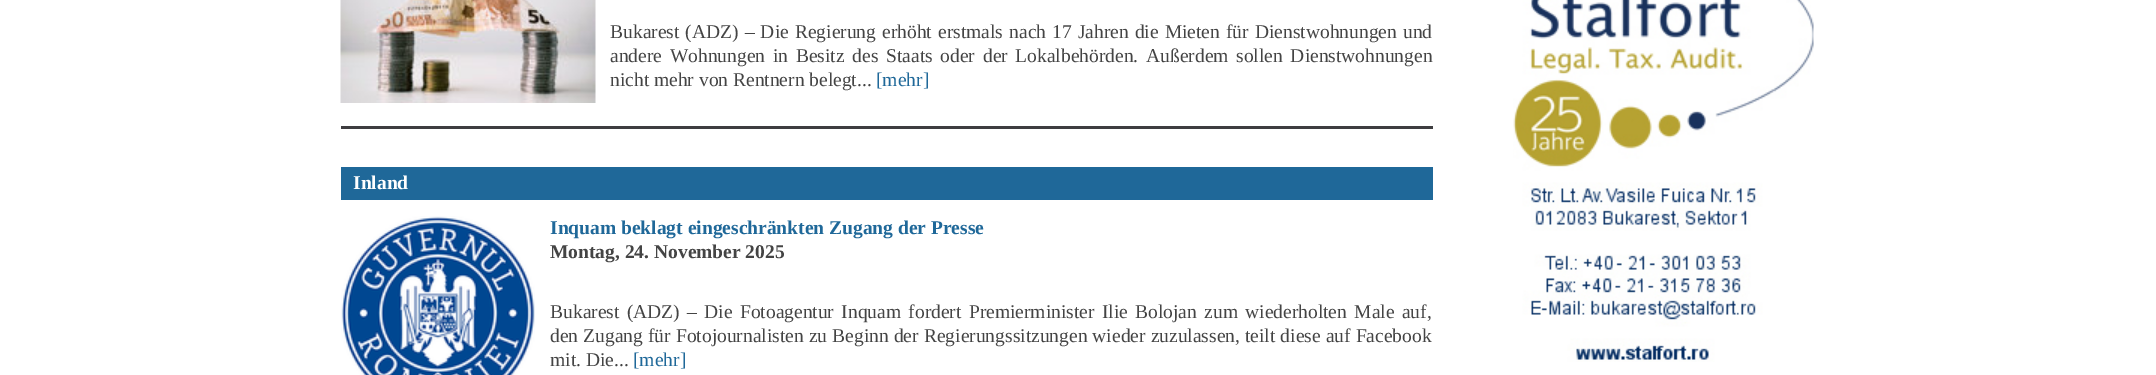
%!PS
<< /PageSize [2156 375] >> setpagedevice
/rgb { 3 { 255 div 3 1 roll } repeat setrgbcolor } def
/font { [ exch dup neg 0 0 3 -1 roll 0 0 ] selectfont } def
/picture { 5 dict begin { /h /w /y /x /name } { exch def } forall
  gsave x y translate w h scale
  w h 8 [w 0 0 h 0 0] name (r) file false 3 colorimage grestore end } def
0 375 translate 1 -1 scale
4 setmiterlimit
255 255 255 rgb
0 0 2156 375 rectfill
62 61 64 rgb
341 126 1092 3 rectfill
(img/1.rgb) 340 0 256 103 picture
31 104 153 rgb
341 167 1092 33 rectfill
(img/2.rgb) 341 216 194 159 picture
(img/3.rgb) 1513 0 301 362 picture
/LiberationSerif-Regular 19.5 font
68 68 68 rgb
610 38 moveto 1.25 0 32 (Bukarest \(ADZ\) – Die Regierung erhöht erstmals nach 17 Jahren die Mieten für Dienstwohnungen und) widthshow
610 62 moveto 2.9 0 32 (andere Wohnungen in Besitz des Staats oder der Lokalbehörden. Außerdem sollen Dienstwohnungen) widthshow
610 86 moveto (nicht mehr von Rentnern belegt...) show
31 104 153 rgb
876 86 moveto ([mehr]) show
/LiberationSerif-Bold 19.5 font
255 255 255 rgb
353 189 moveto (Inland) show
31 104 153 rgb
550 234 moveto (Inquam beklagt eingeschränkten Zugang der Presse) show
68 68 68 rgb
550 258 moveto (Montag, 24. November 2025) show
/LiberationSerif-Regular 19.5 font
550 318 moveto 2.5 0 32 (Bukarest \(ADZ\) – Die Fotoagentur Inquam fordert Premierminister Ilie Bolojan zum wiederholten Male auf,) widthshow
550 342 moveto 0.25 0 32 (den Zugang für Fotojournalisten zu Beginn der Regierungssitzungen wieder zuzulassen, teilt diese auf Facebook) widthshow
550 366 moveto (mit. Die...) show
31 104 153 rgb
633 366 moveto ([mehr]) show
showpage
